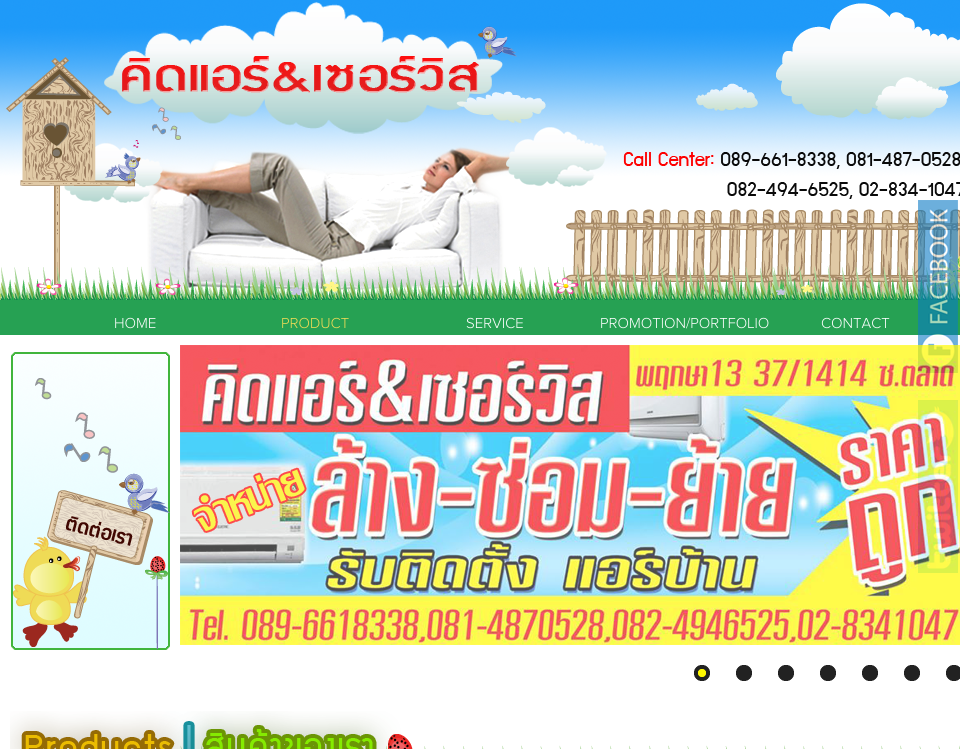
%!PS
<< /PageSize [960 749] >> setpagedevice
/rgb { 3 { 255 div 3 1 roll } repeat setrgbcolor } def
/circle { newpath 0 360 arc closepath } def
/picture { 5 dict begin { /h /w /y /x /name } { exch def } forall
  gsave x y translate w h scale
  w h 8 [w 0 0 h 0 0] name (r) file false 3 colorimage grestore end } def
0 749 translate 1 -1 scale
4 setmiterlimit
255 255 255 rgb
0 0 960 749 rectfill
(img/1.rgb) 0 0 960 300 picture
38 161 83 rgb
0 300 960 35 rectfill
(img/2.rgb) 115 317 41 12 picture
(img/3.rgb) 282 317 67 12 picture
(img/4.rgb) 466 317 57 12 picture
(img/5.rgb) 601 317 168 12 picture
(img/6.rgb) 821 317 69 12 picture
(img/7.rgb) 11 352 159 298 picture
(img/10.rgb) 918 200 40 173 picture
(img/11.rgb) 918 400 40 173 picture
(img/8.rgb) 180 345 780 300 picture
34 34 34 rgb
702 673 8 circle fill
255 249 1 rgb
702 673 4 circle fill
698 671 moveto 706 671 lineto 702 675 lineto closepath fill
34 34 34 rgb
744 673 8 circle fill
786 673 8 circle fill
828 673 8 circle fill
870 673 8 circle fill
912 673 8 circle fill
954 673 8 circle fill
(img/9.rgb) 10 711 950 38 picture
showpage
